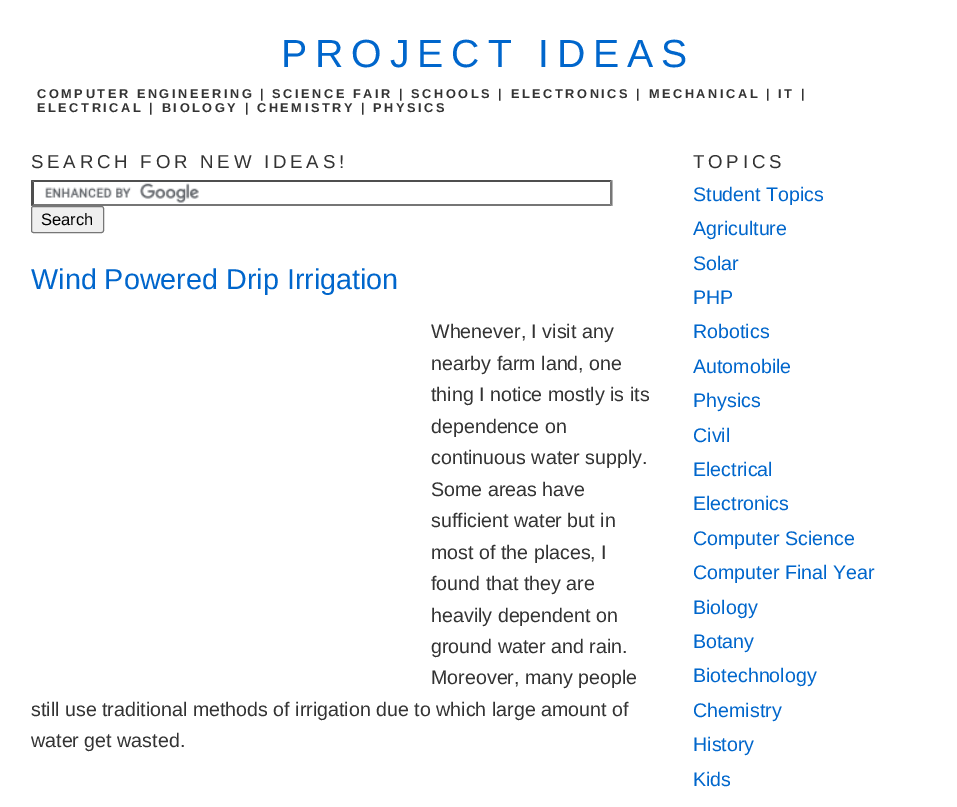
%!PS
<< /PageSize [957 807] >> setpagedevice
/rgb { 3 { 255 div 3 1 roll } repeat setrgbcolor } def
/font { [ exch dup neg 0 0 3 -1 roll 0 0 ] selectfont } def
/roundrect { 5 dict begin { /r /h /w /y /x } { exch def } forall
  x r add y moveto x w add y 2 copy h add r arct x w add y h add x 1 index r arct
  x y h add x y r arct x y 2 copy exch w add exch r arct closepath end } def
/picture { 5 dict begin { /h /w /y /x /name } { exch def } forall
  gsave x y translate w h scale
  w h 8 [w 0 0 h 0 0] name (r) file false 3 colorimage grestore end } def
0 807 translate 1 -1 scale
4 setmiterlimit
255 255 255 rgb
0 0 957 807 rectfill
(img/1.rgb) 45 183 154 20 picture
79 79 79 rgb
31 180 moveto 612 180 lineto 610 182 lineto 34 182 lineto closepath fill
118 118 118 rgb
612.5 180 moveto 612.5 206 lineto 610 204 lineto 610 182.5 lineto closepath fill
612 206 moveto 31 206 lineto 34 204 lineto 610 204 lineto closepath fill
79 79 79 rgb
31 206 moveto 31 180 lineto 34 182.5 lineto 34 204 lineto closepath fill
239 239 239 rgb
31.5 206.5 72 26 2 roundrect gsave fill grestore
118 118 118 rgb
stroke
/LiberationSans-Regular 39.25 font
0 102 204 rgb
281 67 moveto 7.9 0 (PROJECT IDEAS) ashow
/LiberationSans-Bold 12.78 font
51 51 51 rgb
37 98 moveto 2.55 0 (COMPUTER ENGINEERING | SCIENCE FAIR | SCHOOLS | ELECTRONICS | MECHANICAL | IT |) ashow
37 112 moveto 2.55 0 (ELECTRICAL | BIOLOGY | CHEMISTRY | PHYSICS) ashow
/LiberationSans-Regular 18.7 font
31 168 moveto 3.75 0 (SEARCH FOR NEW IDEAS!) ashow
/LiberationSans-Regular 16.5 font
0 0 0 rgb
41 225 moveto (Search) show
/LiberationSans-Regular 28.75 font
0 102 204 rgb
31 289 moveto (Wind Powered Drip Irrigation) show
/LiberationSans-Regular 19.65 font
51 51 51 rgb
[
  [(Whenever, I visit any) 431 338]
  [(nearby farm land, one) 431 370]
  [(thing I notice mostly is its) 431 401]
  [(dependence on) 431 433]
  [(continuous water supply.) 431 464]
  [(Some areas have) 431 496]
  [(sufficient water but in) 431 527]
  [(most of the places, I) 431 559]
  [(found that they are) 431 590]
  [(heavily dependent on) 431 622]
  [(ground water and rain.) 431 653]
  [(Moreover, many people) 431 684]
  [(still use traditional methods of irrigation due to which large amount of) 31 716]
  [(water get wasted.) 31 747]
] { aload pop moveto show } forall
/LiberationSans-Regular 18.7 font
693 168 moveto 3.75 0 (TOPICS) ashow
/LiberationSans-Regular 19.65 font
0 102 204 rgb
[
  [(Student Topics) 693 201]
  [(Agriculture) 693 235]
  [(Solar) 693 270]
  [(PHP) 693 304]
  [(Robotics) 693 338]
  [(Automobile) 693 373]
  [(Physics) 693 407]
  [(Civil) 693 442]
  [(Electrical) 693 476]
  [(Electronics) 693 510]
  [(Computer Science) 693 545]
  [(Computer Final Year) 693 579]
  [(Biology) 693 614]
  [(Botany) 693 648]
  [(Biotechnology) 693 682]
  [(Chemistry) 693 717]
  [(History) 693 751]
  [(Kids) 693 786]
] { aload pop moveto show } forall
showpage
